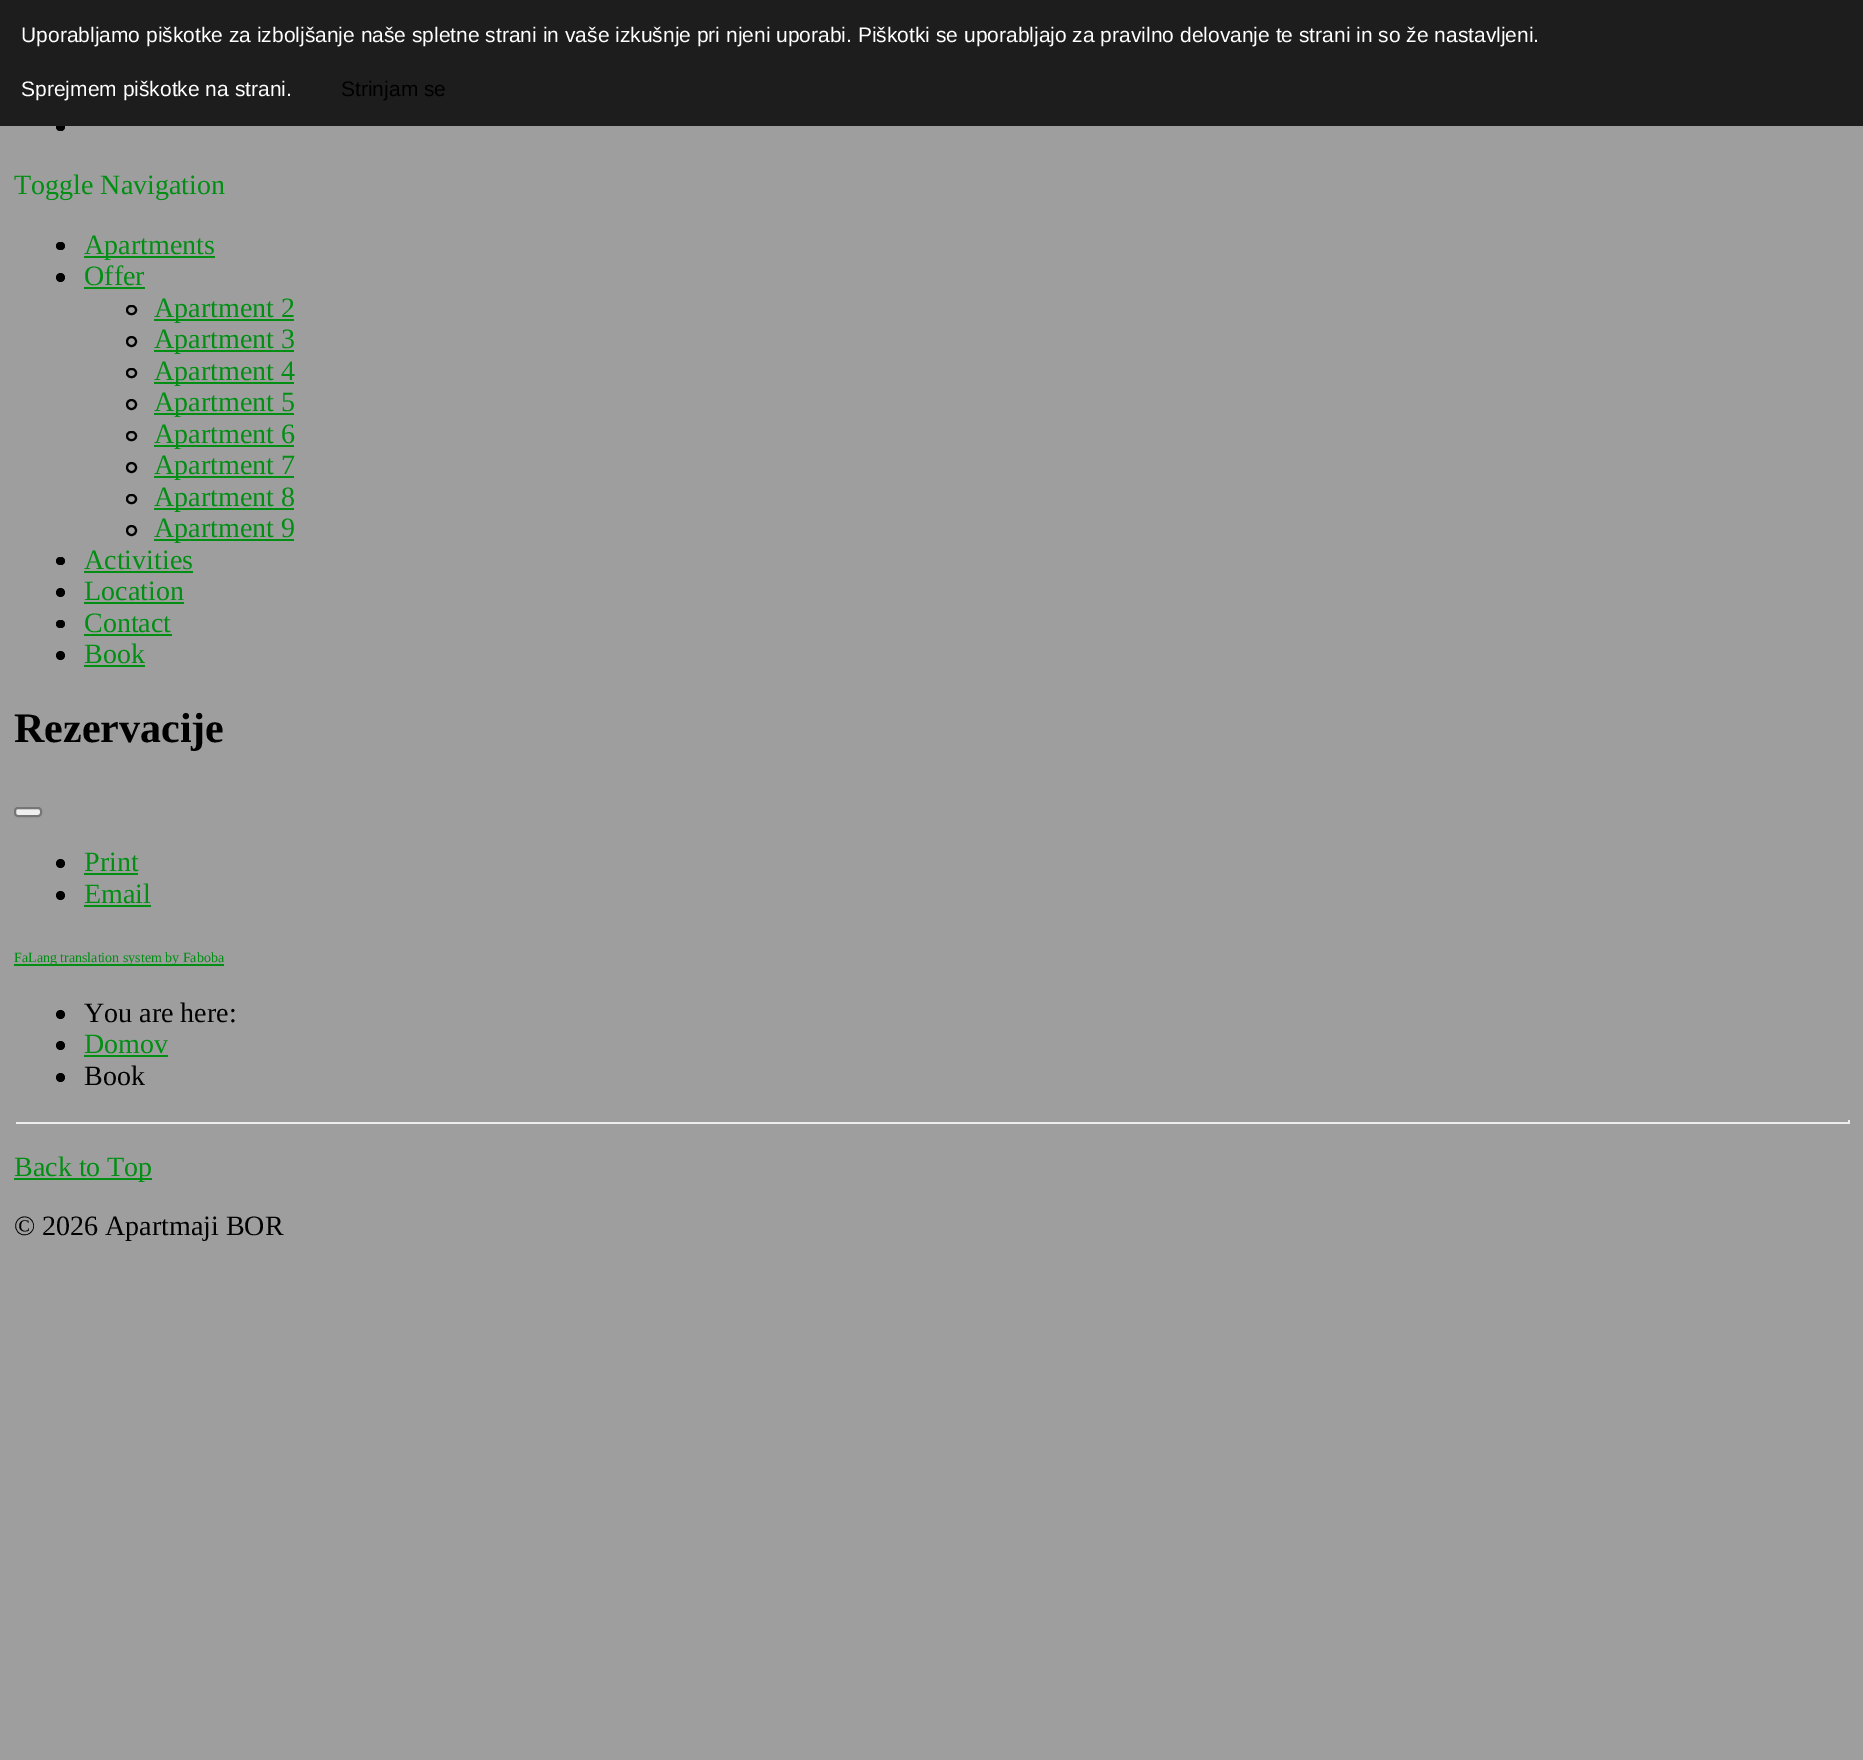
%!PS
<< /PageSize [1863 1760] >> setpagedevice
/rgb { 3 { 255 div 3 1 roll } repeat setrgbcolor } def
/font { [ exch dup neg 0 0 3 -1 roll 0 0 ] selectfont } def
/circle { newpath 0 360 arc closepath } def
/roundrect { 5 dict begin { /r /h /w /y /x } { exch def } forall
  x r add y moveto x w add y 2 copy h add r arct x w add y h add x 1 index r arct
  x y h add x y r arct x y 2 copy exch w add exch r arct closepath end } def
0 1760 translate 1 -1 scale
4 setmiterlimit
158 158 158 rgb
0 0 1863 1760 rectfill
0 0 0 rgb
56 123 9 8 4 roundrect fill
29 29 29 rgb
0 0 1863 126 rectfill
0 0 0 rgb
56 242 9 8 4 roundrect fill
0 143 19 rgb
84 256 131 2 rectfill
0 0 0 rgb
60.5 277.5 4.5 circle fill
0 143 19 rgb
84 287 61 2 rectfill
0 0 0 rgb
2 setlinewidth
127 306 9 8 4 roundrect stroke
0 143 19 rgb
154 319 140 2 rectfill
0 0 0 rgb
131.5 341.5 4.5 circle stroke
0 143 19 rgb
154 350 140 2 rectfill
0 0 0 rgb
127 369 9 8 4 roundrect stroke
0 143 19 rgb
154 382 140 2 rectfill
0 0 0 rgb
131.5 404.5 4.5 circle stroke
0 143 19 rgb
154 413 140 2 rectfill
0 0 0 rgb
127 432 9 8 4 roundrect stroke
0 143 19 rgb
154 445 140 2 rectfill
0 0 0 rgb
131.5 467.5 4.5 circle stroke
0 143 19 rgb
154 476 140 2 rectfill
0 0 0 rgb
127 495 9 8 4 roundrect stroke
0 143 19 rgb
154 508 140 2 rectfill
0 0 0 rgb
131.5 530.5 4.5 circle stroke
0 143 19 rgb
154 539 140 2 rectfill
0 0 0 rgb
56 557 9 8 4 roundrect fill
0 143 19 rgb
84 571 109 2 rectfill
0 0 0 rgb
60.5 592.5 4.5 circle fill
0 143 19 rgb
84 602 100 2 rectfill
0 0 0 rgb
56 620 9 8 4 roundrect fill
0 143 19 rgb
84 634 88 2 rectfill
0 0 0 rgb
60.5 655.5 4.5 circle fill
0 143 19 rgb
84 665 61 2 rectfill
239 239 239 rgb
15 808 26 8 3 roundrect gsave fill grestore
118 118 118 rgb
stroke
0 0 0 rgb
60.5 863.5 4.5 circle fill
0 143 19 rgb
84 873 54 2 rectfill
0 0 0 rgb
60.5 895.5 4.5 circle fill
0 143 19 rgb
84 905 67 2 rectfill
14 964 210 2 rectfill
0 0 0 rgb
60.5 1014.5 4.5 circle fill
60.5 1045.5 4.5 circle fill
0 143 19 rgb
84 1055 84 2 rectfill
0 0 0 rgb
60.5 1077.5 4.5 circle fill
[
  [1848 1120 2 4 238 238 238]
  [14 1122 1836 2 238 238 238]
  [14 1120 2 4 159 159 159]
  [14 1178 138 2 0 143 19]
] { aload pop rgb rectfill } forall
/LiberationSans-Regular 21 font
255 255 255 rgb
21 42 moveto (Uporabljamo piškotke za izboljšanje naše spletne strani in vaše izkušnje pri njeni uporabi. Piškotki se uporabljajo za pravilno delovanje te strani in so že nastavljeni.) show
21 96 moveto (Sprejmem piškotke na strani.) show
0 0 0 rgb
341 96 moveto (Strinjam se) show
/LiberationSerif-Regular 28 font
0 143 19 rgb
[
  [(Toggle Navigation) 14 194]
  [(Apartments) 84 254]
  [(Offer) 84 285]
  [(Apartment 2) 154 317]
  [(Apartment 3) 154 348]
  [(Apartment 4) 154 380]
  [(Apartment 5) 154 411]
  [(Apartment 6) 154 443]
  [(Apartment 7) 154 474]
  [(Apartment 8) 154 506]
  [(Apartment 9) 154 537]
  [(Activities) 84 569]
  [(Location) 84 600]
  [(Contact) 84 632]
  [(Book) 84 663]
] { aload pop moveto show } forall
/LiberationSerif-Bold 42 font
0 0 0 rgb
14 742 moveto (Rezervacije) show
/LiberationSerif-Regular 28 font
0 143 19 rgb
84 871 moveto (Print) show
84 903 moveto (Email) show
/LiberationSerif-Regular 14 font
14 962 moveto (FaLang translation system by Faboba) show
/LiberationSerif-Regular 28 font
0 0 0 rgb
84 1022 moveto (You are here:) show
0 143 19 rgb
84 1053 moveto (Domov) show
0 0 0 rgb
84 1085 moveto (Book) show
0 143 19 rgb
14 1176 moveto (Back to Top) show
0 0 0 rgb
14 1235 moveto (© 2026 Apartmaji BOR) show
showpage
